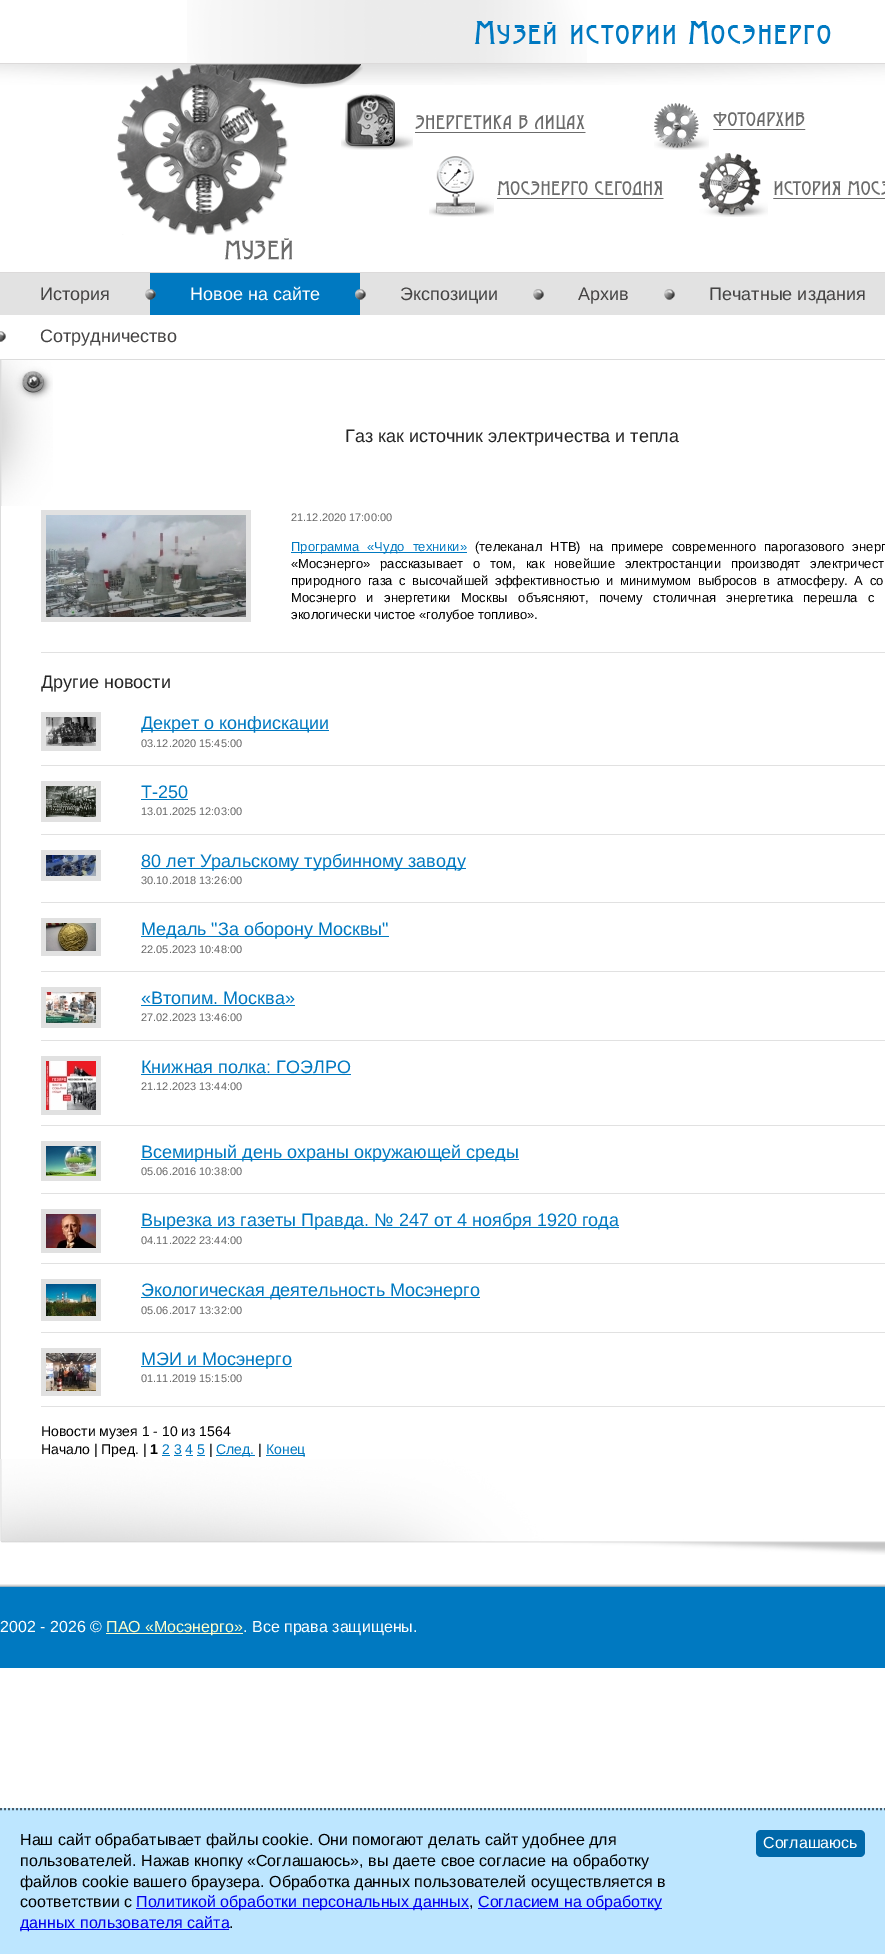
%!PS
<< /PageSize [885 1954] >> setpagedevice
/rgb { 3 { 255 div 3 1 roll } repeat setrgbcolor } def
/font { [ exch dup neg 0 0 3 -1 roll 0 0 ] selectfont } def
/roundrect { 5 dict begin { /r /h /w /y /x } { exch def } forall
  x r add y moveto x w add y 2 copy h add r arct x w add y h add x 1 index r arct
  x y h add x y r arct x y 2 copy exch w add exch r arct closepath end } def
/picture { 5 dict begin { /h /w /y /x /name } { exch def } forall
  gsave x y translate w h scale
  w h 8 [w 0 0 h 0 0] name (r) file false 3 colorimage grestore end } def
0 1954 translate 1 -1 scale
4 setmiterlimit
255 255 255 rgb
0 0 885 1954 rectfill
(img/1.rgb) 187 0 400 63 picture
(img/2.rgb) 474 21 357 23 picture
(img/3.rgb) 0 64 885 21 picture
220 218 218 rgb
0 63 885 1 rectfill
0 272 885 1 rectfill
(img/4.rgb) 117 64 246 171 picture
(img/5.rgb) 341 93 72 57 picture
(img/6.rgb) 415 115 171 18 picture
(img/7.rgb) 654 103 55 47 picture
(img/8.rgb) 713 112 93 18 picture
(img/9.rgb) 429 156 65 61 picture
(img/10.rgb) 497 181 167 18 picture
(img/11.rgb) 699 153 69 64 picture
(img/12.rgb) 773 181 112 18 picture
(img/13.rgb) 224 238 68 22 picture
226 226 226 rgb
0 273 885 42 rectfill
0 121 193 rgb
150 273 210 42 rectfill
(img/14.rgb) 145 289 11 11 picture
(img/15.rgb) 355 289 11 11 picture
(img/16.rgb) 533 289 11 11 picture
(img/16.rgb) 664 289 11 11 picture
(img/17.rgb) 0 331 6 11 picture
(img/18.rgb) 1 360 52 146 picture
[
  [0 359 885 1 220 220 220]
  [0 359 1 1100 220 220 220]
  [41 510 210 112 225 225 225]
] { aload pop rgb rectfill } forall
(img/19.rgb) 46 515 200 102 picture
[
  [291 552 176 1 0 121 193]
  [41 652 844 1 225 225 225]
  [41 712 60 39 225 225 225]
] { aload pop rgb rectfill } forall
(img/20.rgb) 46 717 50 29 picture
[
  [141 730 188 1 0 121 193]
  [41 765 844 1 225 225 225]
  [41 781 60 41 225 225 225]
] { aload pop rgb rectfill } forall
(img/21.rgb) 46 786 50 31 picture
[
  [141 799 47 1 0 121 193]
  [41 834 844 1 225 225 225]
  [41 850 60 31 225 225 225]
] { aload pop rgb rectfill } forall
(img/22.rgb) 46 855 50 21 picture
[
  [141 868 325 1 0 121 193]
  [41 902 844 1 225 225 225]
  [41 918 60 38 225 225 225]
] { aload pop rgb rectfill } forall
(img/23.rgb) 46 923 50 28 picture
[
  [141 936 248 1 0 121 193]
  [41 971 844 1 225 225 225]
  [41 987 60 41 225 225 225]
] { aload pop rgb rectfill } forall
(img/24.rgb) 46 992 50 31 picture
[
  [141 1005 154 1 0 121 193]
  [41 1040 844 1 225 225 225]
  [41 1056 60 59 225 225 225]
] { aload pop rgb rectfill } forall
(img/25.rgb) 46 1061 50 49 picture
[
  [141 1074 210 1 0 121 193]
  [41 1125 844 1 225 225 225]
  [41 1141 60 40 225 225 225]
] { aload pop rgb rectfill } forall
(img/26.rgb) 46 1146 50 30 picture
[
  [141 1159 378 1 0 121 193]
  [41 1193 844 1 225 225 225]
  [41 1209 60 44 225 225 225]
] { aload pop rgb rectfill } forall
(img/27.rgb) 46 1214 50 34 picture
[
  [141 1227 478 1 0 121 193]
  [41 1263 844 1 225 225 225]
  [41 1279 60 42 225 225 225]
] { aload pop rgb rectfill } forall
(img/28.rgb) 46 1284 50 32 picture
[
  [141 1297 339 1 0 121 193]
  [41 1332 844 1 225 225 225]
  [41 1348 60 48 225 225 225]
] { aload pop rgb rectfill } forall
(img/29.rgb) 46 1353 50 38 picture
[
  [141 1366 151 1 0 121 193]
  [41 1406 844 1 225 225 225]
  [162 1455 8 1 0 121 193]
  [174 1455 8 1 0 121 193]
  [186 1455 7 1 0 121 193]
  [197 1455 8 1 0 121 193]
  [216 1455 39 1 0 121 193]
  [266 1455 39 1 0 121 193]
] { aload pop rgb rectfill } forall
(img/30.rgb) 0 1459 885 96 picture
(img/31.rgb) 0 1584 885 3 picture
[
  [0 1587 885 81 0 121 193]
  [106 1633 137 1 255 255 204]
  [0 1808 885 146 189 230 255]
] { aload pop rgb rectfill } forall
76 92 102 rgb
2 setlinewidth
[2 2] 0 setdash
0 1809 moveto 885 1809 lineto stroke
[
  [136 1908 333 1 0 0 238]
  [478 1908 184 1 0 0 238]
  [20 1929 209 1 0 0 238]
] { aload pop rgb rectfill } forall
0 104 169 rgb
756 1830 109 27 5 roundrect fill
/LiberationSans-Regular 18 font
69 68 68 rgb
40 300 moveto (История) show
255 255 255 rgb
190 300 moveto (Новое на сайте) show
69 68 68 rgb
[
  [(Экспозиции) 400 300]
  [(Архив) 578 300]
  [(Печатные издания) 709 300]
  [(Сотрудничество) 40 342]
] { aload pop moveto show } forall
37 37 37 rgb
345 442 moveto (Газ как источник электричества и тепла) show
/LiberationSans-Regular 11 font
102 102 102 rgb
291 521 moveto (21.12.2020 17:00:00) show
/LiberationSans-Regular 13 font
0 121 193 rgb
291 551 moveto 4.5 0 32 (Программа «Чудо техники») widthshow
0 0 0 rgb
475 551 moveto 4.5 0 32 (\(телеканал НТВ\) на примере современного парогазового энерг) widthshow
291 568 moveto 6.25 0 32 («Мосэнерго» рассказывает о том, как новейшие электростанции производят электричест) widthshow
291 585 moveto 3 0 32 (природного газа с высочайшей эффективностью и минимумом выбросов в атмосферу. А со) widthshow
291 602 moveto 7 0 32 (Мосэнерго и энергетики Москвы объясняют, почему столичная энергетика перешла с) widthshow
291 619 moveto (экологически чистое «голубое топливо».) show
/LiberationSans-Regular 18 font
37 37 37 rgb
41 688 moveto (Другие новости) show
0 121 193 rgb
141 729 moveto (Декрет о конфискации) show
/LiberationSans-Regular 11 font
102 102 102 rgb
141 747 moveto (03.12.2020 15:45:00) show
/LiberationSans-Regular 18 font
0 121 193 rgb
141 798 moveto (Т-250) show
/LiberationSans-Regular 11 font
102 102 102 rgb
141 815 moveto (13.01.2025 12:03:00) show
/LiberationSans-Regular 18 font
0 121 193 rgb
141 867 moveto (80 лет Уральскому турбинному заводу) show
/LiberationSans-Regular 11 font
102 102 102 rgb
141 884 moveto (30.10.2018 13:26:00) show
/LiberationSans-Regular 18 font
0 121 193 rgb
141 935 moveto (Медаль "За оборону Москвы") show
/LiberationSans-Regular 11 font
102 102 102 rgb
141 953 moveto (22.05.2023 10:48:00) show
/LiberationSans-Regular 18 font
0 121 193 rgb
141 1004 moveto («Втопим. Москва») show
/LiberationSans-Regular 11 font
102 102 102 rgb
141 1021 moveto (27.02.2023 13:46:00) show
/LiberationSans-Regular 18 font
0 121 193 rgb
141 1073 moveto (Книжная полка: ГОЭЛРО) show
/LiberationSans-Regular 11 font
102 102 102 rgb
141 1090 moveto (21.12.2023 13:44:00) show
/LiberationSans-Regular 18 font
0 121 193 rgb
141 1158 moveto (Всемирный день охраны окружающей среды) show
/LiberationSans-Regular 11 font
102 102 102 rgb
141 1175 moveto (05.06.2016 10:38:00) show
/LiberationSans-Regular 18 font
0 121 193 rgb
141 1226 moveto (Вырезка из газеты Правда. № 247 от 4 ноября 1920 года) show
/LiberationSans-Regular 11 font
102 102 102 rgb
141 1244 moveto (04.11.2022 23:44:00) show
/LiberationSans-Regular 18 font
0 121 193 rgb
141 1296 moveto (Экологическая деятельность Мосэнерго) show
/LiberationSans-Regular 11 font
102 102 102 rgb
141 1314 moveto (05.06.2017 13:32:00) show
/LiberationSans-Regular 18 font
0 121 193 rgb
141 1365 moveto (МЭИ и Мосэнерго) show
/LiberationSans-Regular 11 font
102 102 102 rgb
141 1382 moveto (01.11.2019 15:15:00) show
/LiberationSans-Regular 14 font
0 0 0 rgb
41 1436 moveto (Новости музея 1 - 10 из 1564) show
41 1454 moveto (Начало | Пред. |) show
/LiberationSans-Bold 14 font
150 1454 moveto (1) show
/LiberationSans-Regular 14 font
0 121 193 rgb
162 1454 moveto (2 3 4 5) show
0 0 0 rgb
209 1454 moveto (|) show
0 121 193 rgb
216 1454 moveto (След.) show
0 0 0 rgb
258 1454 moveto (|) show
0 121 193 rgb
266 1454 moveto (Конец) show
/LiberationSans-Regular 16 font
255 255 255 rgb
0 1632 moveto (2002 - 2026 ©) show
255 255 204 rgb
106 1632 moveto (ПАО «Мосэнерго») show
255 255 255 rgb
243 1632 moveto (. Все права защищены.) show
0 0 0 rgb
[
  [(Наш сайт обрабатывает файлы cookie. Они помогают делать сайт удобнее для) 20 1845]
  [(пользователей. Нажав кнопку «Соглашаюсь», вы даете свое согласие на обработку) 20 1866]
  [(файлов cookie вашего браузера. Обработка данных пользователей осуществляется в) 20 1887]
  [(соответствии с) 20 1907]
] { aload pop moveto show } forall
0 0 238 rgb
136 1907 moveto (Политикой обработки персональных данных) show
0 0 0 rgb
469 1907 moveto (,) show
0 0 238 rgb
478 1907 moveto (Согласием на обработку) show
20 1928 moveto (данных пользователя сайта) show
0 0 0 rgb
229 1928 moveto (.) show
255 255 255 rgb
763 1848 moveto (Соглашаюсь) show
showpage
